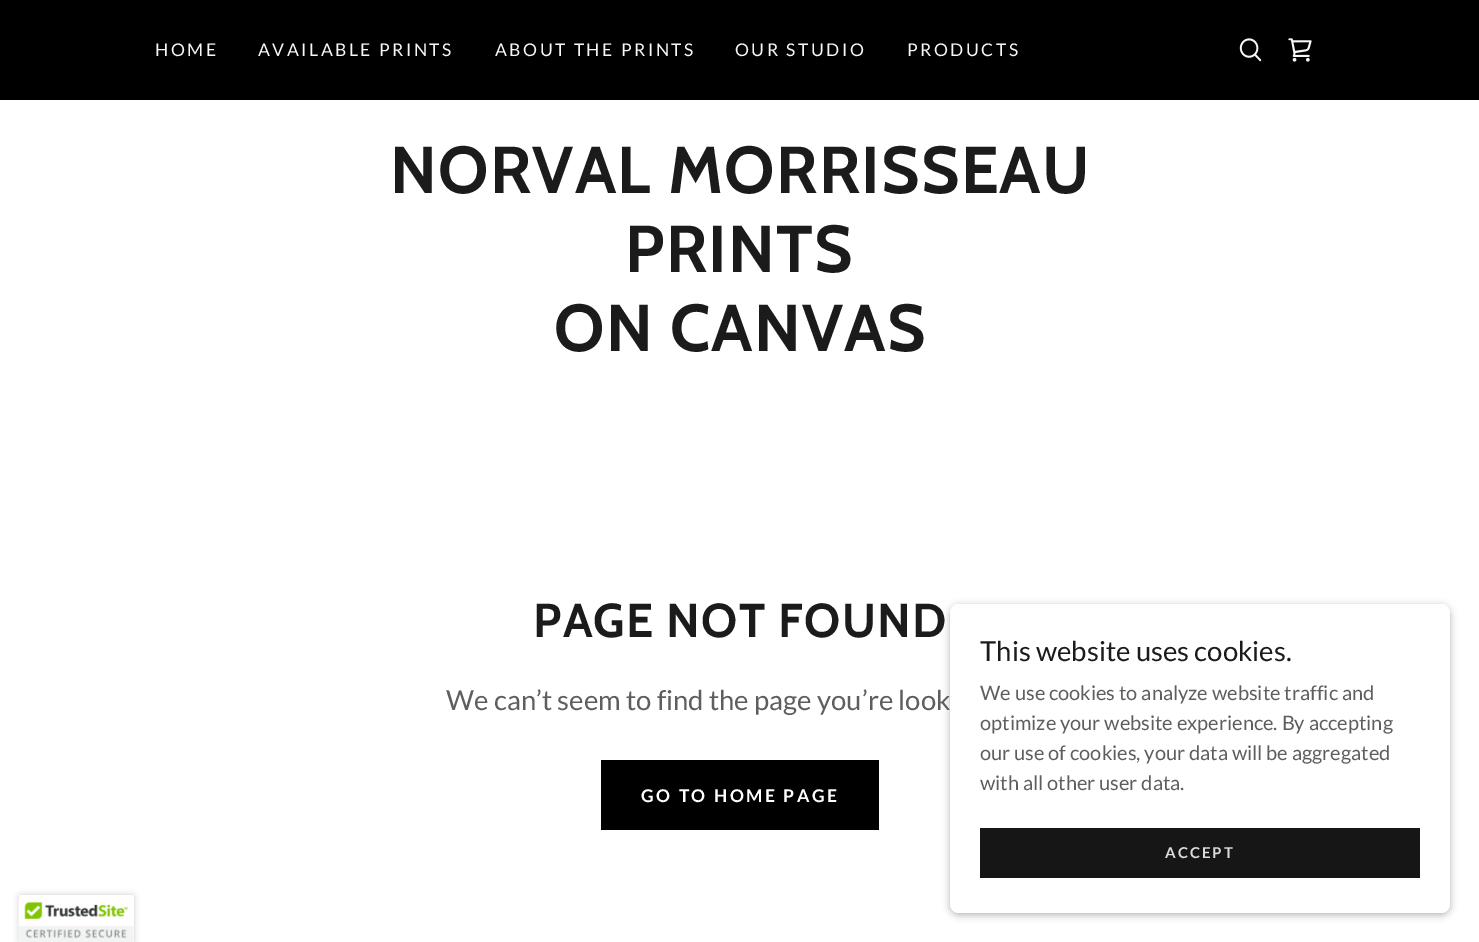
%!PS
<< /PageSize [1479 942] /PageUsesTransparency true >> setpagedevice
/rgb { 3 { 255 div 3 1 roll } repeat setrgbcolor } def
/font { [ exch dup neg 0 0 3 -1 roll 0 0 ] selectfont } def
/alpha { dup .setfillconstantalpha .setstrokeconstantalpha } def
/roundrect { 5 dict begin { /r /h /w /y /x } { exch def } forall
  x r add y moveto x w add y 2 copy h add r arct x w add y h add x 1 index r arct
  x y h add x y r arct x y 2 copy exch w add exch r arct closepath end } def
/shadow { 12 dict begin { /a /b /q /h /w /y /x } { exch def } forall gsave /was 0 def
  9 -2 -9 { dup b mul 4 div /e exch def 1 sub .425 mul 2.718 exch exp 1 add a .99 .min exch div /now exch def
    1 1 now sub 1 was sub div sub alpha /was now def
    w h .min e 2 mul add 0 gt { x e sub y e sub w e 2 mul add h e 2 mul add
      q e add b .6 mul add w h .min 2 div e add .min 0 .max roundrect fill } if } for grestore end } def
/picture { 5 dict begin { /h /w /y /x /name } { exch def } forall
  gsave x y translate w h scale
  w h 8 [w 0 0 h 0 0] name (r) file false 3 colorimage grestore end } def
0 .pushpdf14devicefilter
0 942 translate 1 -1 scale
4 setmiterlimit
255 255 255 rgb
0 0 1479 942 rectfill
0 0 0 rgb
0 0 1479 100 rectfill
(img/1.rgb) 1239 38 23 24 picture
(img/2.rgb) 1288 38 24 24 picture
601 760 278 70 rectfill
950 606 500 309 9 4 0.3 shadow
19 895 115 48 2.5 3 0.2 shadow
255 255 255 rgb
21.5 895 moveto 131.5 895 lineto 133 895 134 896 134 897.5 curveto 134 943 lineto 19 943 lineto 19 897.5 lineto 19 896 20 895 21.5 895 curveto closepath fill
(img/3.rgb) 18 901 116 41 picture
/Lato-Regular 17.5 font
247 247 247 rgb
155 56 moveto 2.5 0 (HOME) ashow
258 56 moveto 2.5 0 (AVAILABLE PRINTS) ashow
495 56 moveto 2.5 0 (ABOUT THE PRINTS) ashow
735 56 moveto 2.5 0 (OUR STUDIO) ashow
907 56 moveto 2.5 0 (PRODUCTS) ashow
/Cabin-Bold 66.25 font
27 27 27 rgb
390 193 moveto 1.25 0 (NORVAL MORRISSEAU) ashow
625 272 moveto 1.25 0 (PRINTS) ashow
554 351 moveto 1.25 0 (ON CANVAS) ashow
/Cabin-Bold 47.5 font
533 637 moveto 1.25 0 (PAGE NOT FOUND) ashow
/Lato-Regular 27.5 font
94 94 94 rgb
446 710 moveto (We can’t seem to find the page you’re look) show
/Lato-Bold 17.5 font
255 255 255 rgb
641 802 moveto 2.5 0 (GO TO HOME PAGE) ashow
950 604 500 309 9 roundrect fill
/Lato-Regular 27.5 font
27 27 27 rgb
980 661 moveto (This website uses cookies.) show
/Lato-Regular 20 font
94 94 94 rgb
[
  [(We use cookies to analyze website traffic and) 980 700]
  [(optimize your website experience. By accepting) 980 730]
  [(our use of cookies, your data will be aggregated) 980 760]
  [(with all other user data.) 980 790]
] { aload pop moveto show } forall
22 22 22 rgb
980 828 440 50 rectfill
/Lato-Bold 15 font
219 219 219 rgb
1165 858 moveto 2 0 (ACCEPT) ashow
.poppdf14devicefilter showpage
